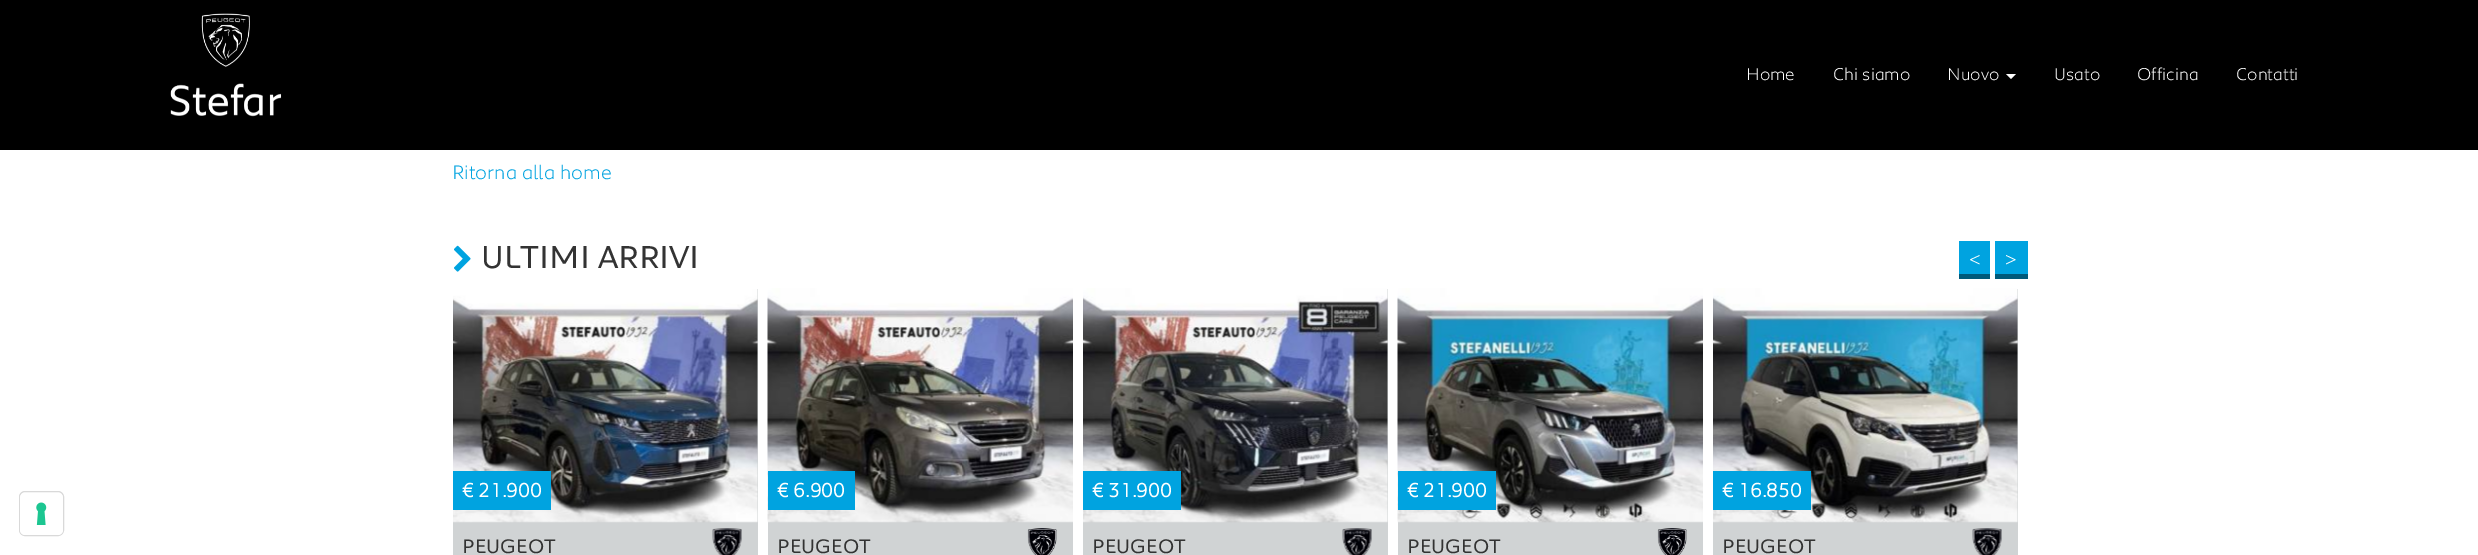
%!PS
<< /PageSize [2478 555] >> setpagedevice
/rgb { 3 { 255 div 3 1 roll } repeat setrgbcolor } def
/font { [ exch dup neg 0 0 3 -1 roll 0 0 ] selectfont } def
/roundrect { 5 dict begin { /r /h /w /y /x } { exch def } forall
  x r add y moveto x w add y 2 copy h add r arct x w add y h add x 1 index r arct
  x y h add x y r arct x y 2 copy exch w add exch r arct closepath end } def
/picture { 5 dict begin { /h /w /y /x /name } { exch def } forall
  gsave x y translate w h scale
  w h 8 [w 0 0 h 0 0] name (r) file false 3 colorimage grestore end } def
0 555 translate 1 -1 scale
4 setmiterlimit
255 255 255 rgb
0 0 2478 555 rectfill
0 0 0 rgb
0 0 2478 150 rectfill
(img/1.rgb) 170 13 112 104 picture
255 255 255 rgb
2006 74 moveto 2016 74 lineto 2011 79 lineto closepath fill
217 217 217 rgb
19.5 491.5 44 44 5.5 roundrect stroke
255 255 255 rgb
20 493 43 42 5 roundrect fill
(img/2.rgb) 36 502 11 23 picture
(img/3.rgb) 454 245 17 27 picture
[
  [1959 241 31 33 0 163 224]
  [1959 274 31 5 0 89 122]
  [1995 241 33 33 0 163 224]
  [1995 274 33 5 0 89 122]
  [453 289 305 266 208 211 212]
] { aload pop rgb rectfill } forall
(img/4.rgb) 453 289 305 234 picture
0 163 224 rgb
453 471 98 39 rectfill
(img/5.rgb) 712 528 30 27 picture
208 211 212 rgb
768 521 305 34 rectfill
(img/6.rgb) 767 288 306 235 picture
0 163 224 rgb
768 471 87 39 rectfill
(img/7.rgb) 1027 528 30 27 picture
208 211 212 rgb
1083 289 305 266 rectfill
(img/8.rgb) 1083 288 305 235 picture
0 163 224 rgb
1083 471 98 39 rectfill
(img/5.rgb) 1342 528 30 27 picture
208 211 212 rgb
1398 521 305 34 rectfill
(img/9.rgb) 1397 288 306 235 picture
0 163 224 rgb
1398 471 98 39 rectfill
(img/7.rgb) 1657 528 30 27 picture
208 211 212 rgb
1713 289 305 266 rectfill
(img/10.rgb) 1713 288 305 235 picture
0 163 224 rgb
1713 471 98 39 rectfill
(img/5.rgb) 1972 528 30 27 picture
/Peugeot-Light 17.5 font
255 255 255 rgb
[
  [(Home) 1746 80]
  [(Chi siamo) 1833 80]
  [(Nuovo) 1947 80]
  [(Usato) 2054 80]
  [(Officina) 2137 80]
  [(Contatti) 2236 80]
] { aload pop moveto show } forall
/Peugeot-Light 20 font
0 163 224 rgb
452 179 moveto (Ritorna alla home) show
/Peugeot-Regular 32.5 font
51 51 51 rgb
481 268 moveto (ULTIMI ARRIVI) show
/Peugeot-Light 20 font
255 255 255 rgb
1969 266 moveto (<) show
2005 266 moveto (>) show
/Peugeot-Bold 20 font
462 497 moveto (€ 21.900) show
/Peugeot-Regular 20 font
51 51 51 rgb
462 553 moveto (PEUGEOT) show
/Peugeot-Bold 20 font
255 255 255 rgb
777 497 moveto (€ 6.900) show
/Peugeot-Regular 20 font
51 51 51 rgb
777 553 moveto (PEUGEOT) show
/Peugeot-Bold 20 font
255 255 255 rgb
1092 497 moveto (€ 31.900) show
/Peugeot-Regular 20 font
51 51 51 rgb
1092 553 moveto (PEUGEOT) show
/Peugeot-Bold 20 font
255 255 255 rgb
1407 497 moveto (€ 21.900) show
/Peugeot-Regular 20 font
51 51 51 rgb
1407 553 moveto (PEUGEOT) show
/Peugeot-Bold 20 font
255 255 255 rgb
1722 497 moveto (€ 16.850) show
/Peugeot-Regular 20 font
51 51 51 rgb
1722 553 moveto (PEUGEOT) show
showpage
